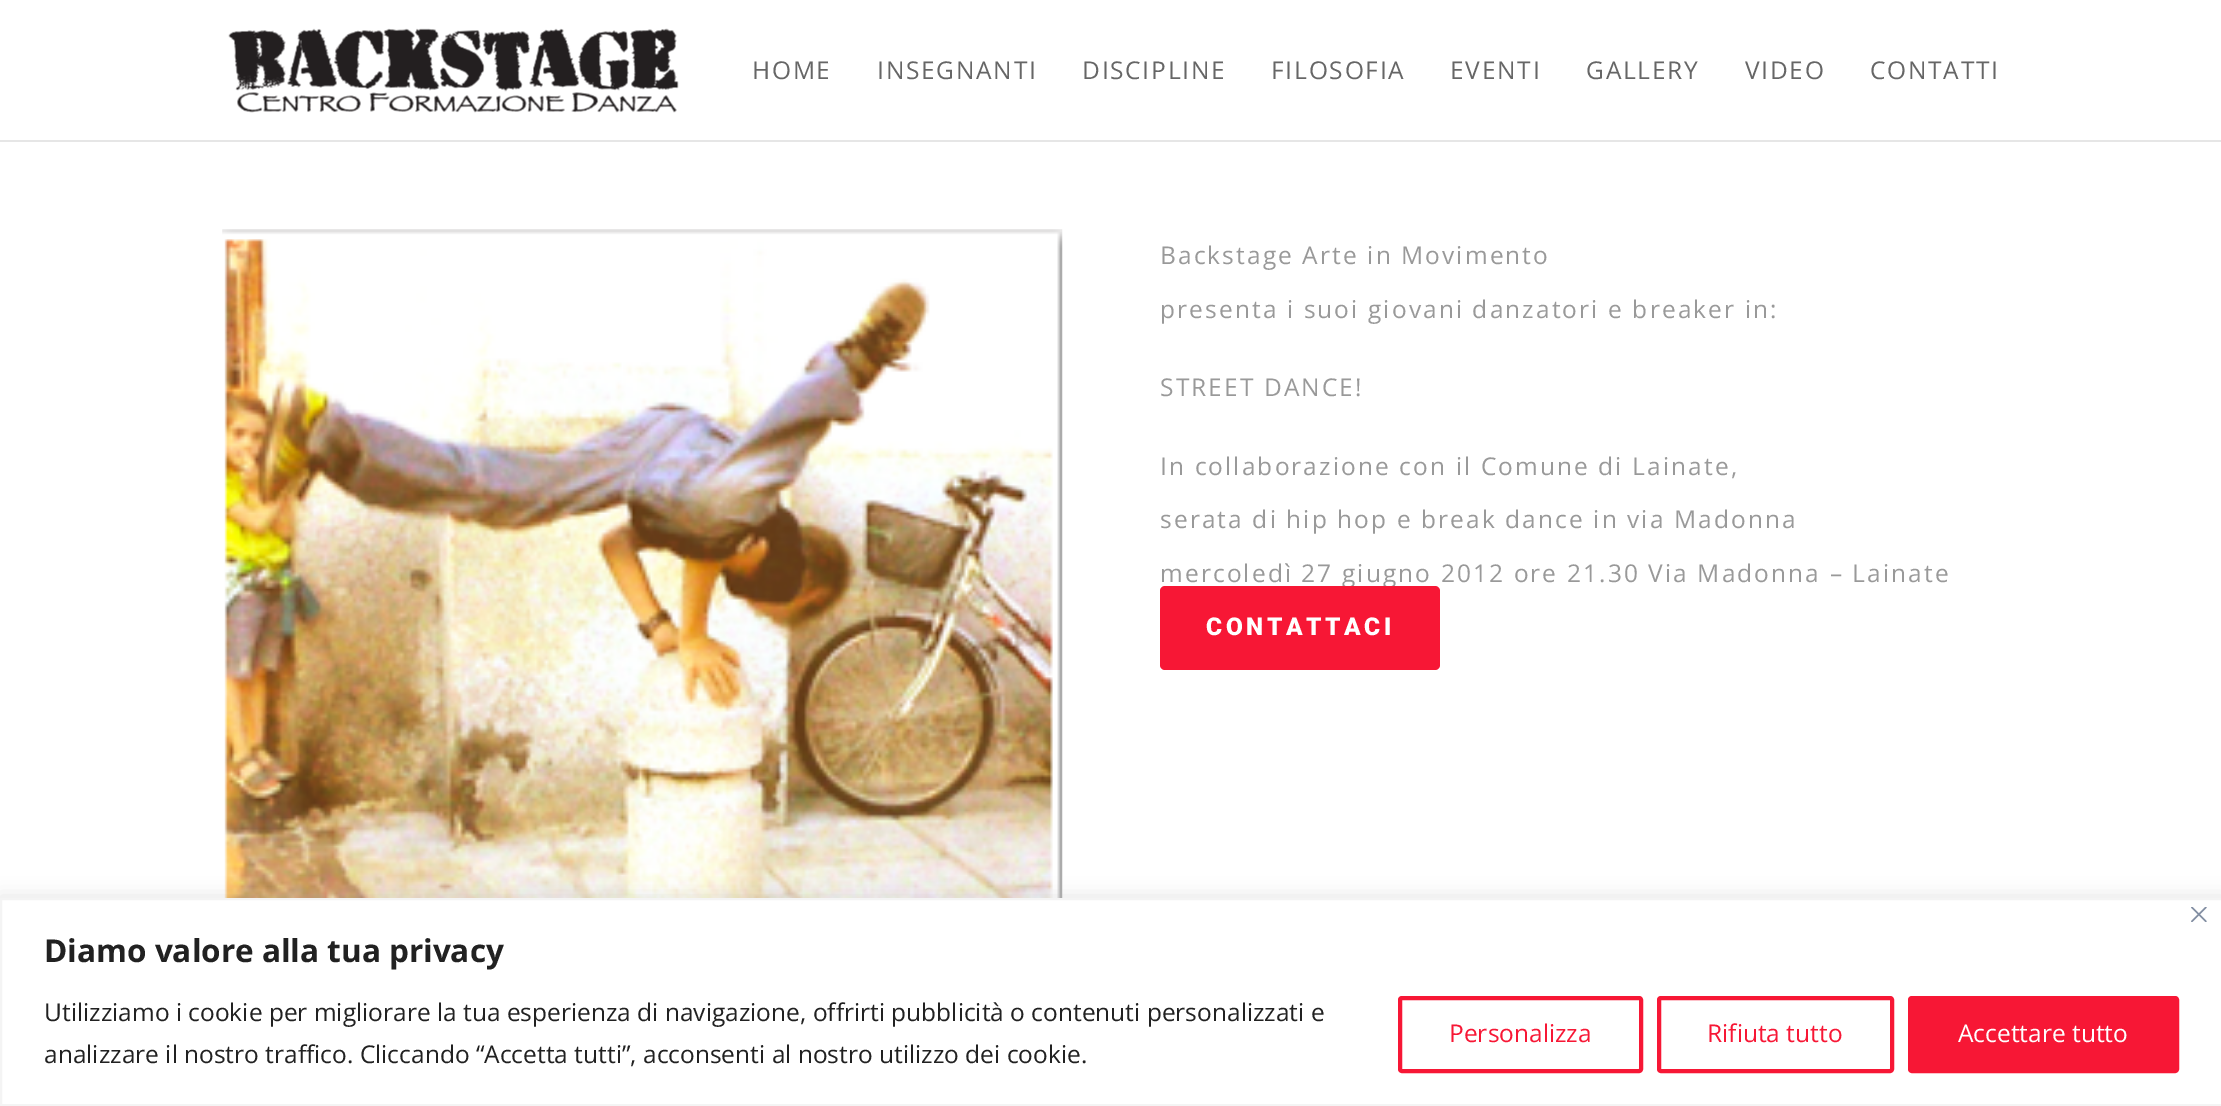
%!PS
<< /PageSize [2221 1106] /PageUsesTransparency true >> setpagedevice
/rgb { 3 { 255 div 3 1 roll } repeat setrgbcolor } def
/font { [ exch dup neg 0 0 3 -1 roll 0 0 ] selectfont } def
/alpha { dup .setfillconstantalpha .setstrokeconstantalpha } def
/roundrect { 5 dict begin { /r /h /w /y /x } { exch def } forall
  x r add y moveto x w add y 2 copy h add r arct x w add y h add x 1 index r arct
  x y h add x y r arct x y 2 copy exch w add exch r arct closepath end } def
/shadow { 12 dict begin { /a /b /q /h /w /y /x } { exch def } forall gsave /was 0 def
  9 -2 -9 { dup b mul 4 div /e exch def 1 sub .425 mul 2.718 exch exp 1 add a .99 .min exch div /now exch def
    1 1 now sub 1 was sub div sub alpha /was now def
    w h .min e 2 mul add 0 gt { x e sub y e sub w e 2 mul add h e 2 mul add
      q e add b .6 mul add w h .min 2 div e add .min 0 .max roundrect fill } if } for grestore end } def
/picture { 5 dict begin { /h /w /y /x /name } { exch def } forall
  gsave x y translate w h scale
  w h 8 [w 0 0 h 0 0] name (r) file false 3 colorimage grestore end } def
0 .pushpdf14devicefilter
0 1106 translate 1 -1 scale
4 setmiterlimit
255 255 255 rgb
0 0 2221 1106 rectfill
230 230 230 rgb
0 140 moveto 0 142 lineto 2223 142 lineto 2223 2 lineto 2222 2 lineto 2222 140 lineto closepath fill
(img/1.rgb) 228 28 451 85 picture
(img/2.rgb) 222 229 841 669 picture
172 171 171 rgb
0 896 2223 208 0 9 0.3 shadow
255 255 255 rgb
1 899 moveto 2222 899 lineto 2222 1105 lineto 1 1105 lineto closepath gsave fill grestore
244 244 244 rgb
2 setlinewidth
stroke
(img/3.rgb) 2191 907 16 15 picture
247 23 53 rgb
4 setlinewidth
1400 998 241 73 2 roundrect stroke
1659 998 233 73 2 roundrect stroke
1910 998 267 73 2 roundrect gsave fill grestore
stroke
/OpenSans-Regular 24.5 font
102 102 102 rgb
752 79 moveto 1.75 0 (HOME) ashow
877 79 moveto 1.75 0 (INSEGNANTI) ashow
1082 79 moveto 1.75 0 (DISCIPLINE) ashow
1271 79 moveto 1.75 0 (FILOSOFIA) ashow
1450 79 moveto 1.75 0 (EVENTI) ashow
1586 79 moveto 1.75 0 (GALLERY) ashow
1745 79 moveto 1.75 0 (VIDEO) ashow
1870 79 moveto 1.75 0 (CONTATTI) ashow
153 153 153 rgb
1160 264 moveto 2.1 0 (Backstage Arte in Movimento) ashow
1160 318 moveto 2.1 0 (presenta i suoi giovani danzatori e breaker in:) ashow
1160 396 moveto 2.1 0 (STREET DANCE!) ashow
1160 475 moveto 2.1 0 (In collaborazione con il Comune di Lainate,) ashow
1160 528 moveto 2.1 0 (serata di hip hop e break dance in via Madonna) ashow
1160 582 moveto 2.1 0 (mercoledì 27 giugno 2012 ore 21.30 Via Madonna – Lainate) ashow
247 23 53 rgb
1160 586 280 84 5 roundrect fill
/Roboto-Black 24.5 font
255 255 255 rgb
1206 635 moveto 3.5 0 (CONTATTACI) ashow
/OpenSans-Bold 31.5 font
33 33 33 rgb
44 962 moveto (Diamo valore alla tua privacy) show
/OpenSans-Regular 24.5 font
44 1021 moveto (Utilizziamo i cookie per migliorare la tua esperienza di navigazione, offrirti pubblicità o contenuti personalizzati e) show
44 1063 moveto (analizzare il nostro traffico. Cliccando “Accetta tutti”, acconsenti al nostro utilizzo dei cookie.) show
247 23 53 rgb
1449 1042 moveto (Personalizza) show
1707 1042 moveto (Rifiuta tutto) show
255 255 255 rgb
1958 1042 moveto (Accettare tutto) show
.poppdf14devicefilter showpage
